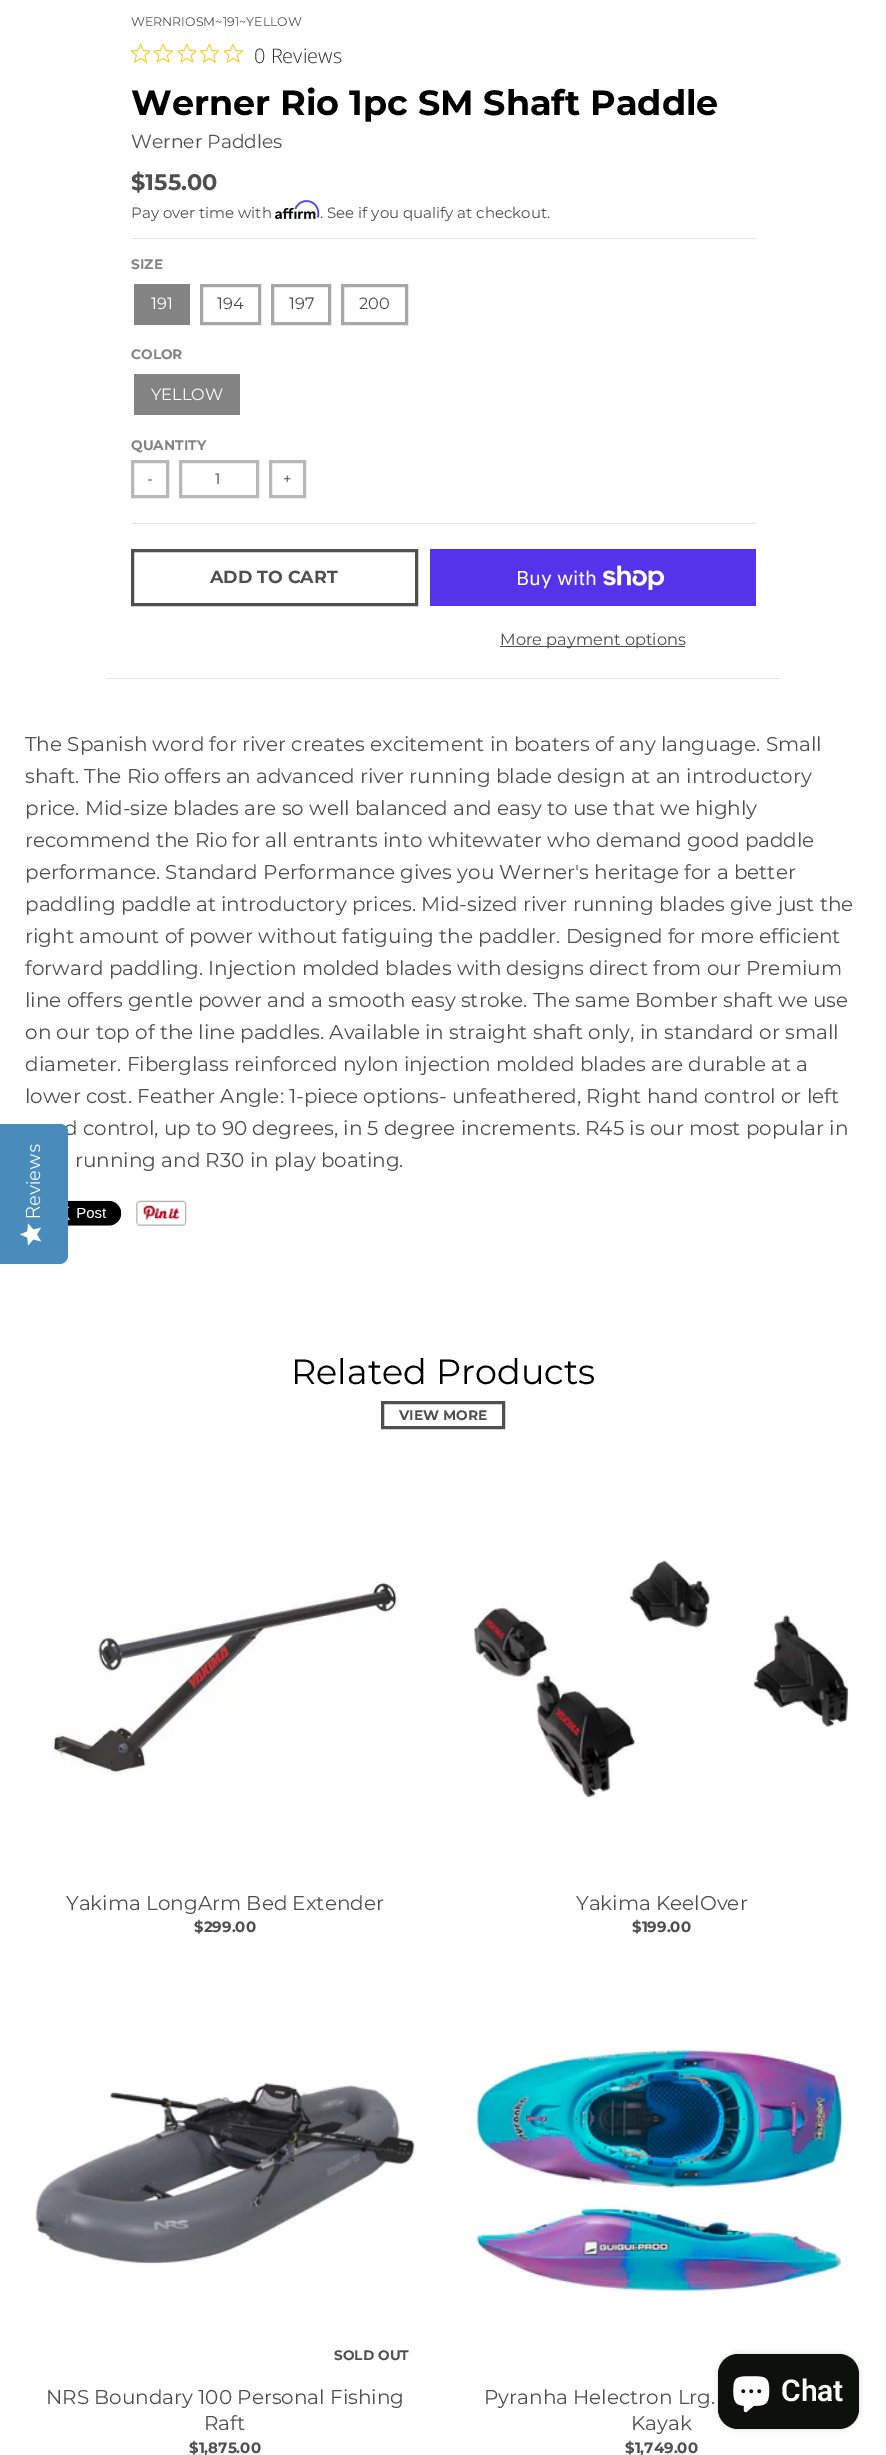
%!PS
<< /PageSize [886 2455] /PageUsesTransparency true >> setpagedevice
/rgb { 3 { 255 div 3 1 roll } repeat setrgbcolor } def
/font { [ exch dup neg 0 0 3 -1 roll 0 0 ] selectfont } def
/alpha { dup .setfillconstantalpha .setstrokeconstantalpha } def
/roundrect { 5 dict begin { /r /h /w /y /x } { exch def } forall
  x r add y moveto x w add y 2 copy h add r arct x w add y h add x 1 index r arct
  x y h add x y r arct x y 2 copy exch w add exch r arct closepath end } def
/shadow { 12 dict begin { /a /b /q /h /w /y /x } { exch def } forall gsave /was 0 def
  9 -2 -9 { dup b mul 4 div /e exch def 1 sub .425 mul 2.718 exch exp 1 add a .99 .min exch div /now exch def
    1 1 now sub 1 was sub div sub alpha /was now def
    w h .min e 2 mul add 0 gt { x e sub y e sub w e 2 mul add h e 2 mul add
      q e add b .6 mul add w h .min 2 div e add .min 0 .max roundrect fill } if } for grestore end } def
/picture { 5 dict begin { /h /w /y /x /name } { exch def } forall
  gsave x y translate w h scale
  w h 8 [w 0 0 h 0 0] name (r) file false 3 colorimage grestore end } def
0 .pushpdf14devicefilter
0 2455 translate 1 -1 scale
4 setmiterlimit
255 255 255 rgb
0 0 886 2455 rectfill
229 229 229 rgb
106 678 675 1 rectfill
(img/1.rgb) 131 44 19 19 picture
(img/2.rgb) 154 44 19 19 picture
(img/3.rgb) 178 44 18 19 picture
(img/4.rgb) 200 44 19 19 picture
(img/2.rgb) 224 44 19 19 picture
131 238 625 1 rectfill
(img/6.rgb) 275 207 41 13 picture
(img/5.rgb) 294 200 26 18 picture
131 523 625 1 rectfill
131 131 131 rgb
134 284 56 41 rectfill
167 167 167 rgb
3 setlinewidth
201.5 285.5 58 38 rectstroke
272.5 285.5 57 38 rectstroke
342.5 285.5 64 38 rectstroke
131 131 131 rgb
134 374 106 41 rectfill
184 184 184 rgb
132.5 461.5 35 35 rectstroke
180.5 461.5 77 35 rectstroke
270.5 461.5 34 35 rectstroke
79 79 79 rgb
132.5 550.5 284 54 rectstroke
84 51 235 rgb
430 549 326 57 rectfill
(img/7.rgb) 603 565 62 25 picture
79 79 79 rgb
500 646 185 1 rectfill
(img/8.rgb) 68 1200 54 26 picture
(img/9.rgb) 136 1200 51 26 picture
382.5 1402.5 121 25 rectstroke
(img/10.rgb) 51 1582 347 192 picture
(img/11.rgb) 473 1560 378 238 picture
(img/12.rgb) 35 2081 380 184 picture
(img/13.rgb) 473 2044 370 249 picture
0 0 0 rgb
718 2354 141 75 20 3 0.15 shadow
13 16 12 rgb
718 2354 141 75 20 roundrect fill
(img/15.rgb) 733 2376 37 37 picture
/Montserrat-Thin 12.5 font
79 79 79 rgb
131 26 moveto (WERNRIOSM~191~YELLOW) show
/OpenSans-Light 20 font
44 44 44 rgb
254 63 moveto (0 Reviews) show
/Montserrat-Bold 35 font
0 0 0 rgb
131 115 moveto (Werner Rio 1pc SM Shaft Paddle) show
/Montserrat-Thin 18.75 font
79 79 79 rgb
131 148 moveto (Werner Paddles) show
/Montserrat-Bold 22.5 font
131 190 moveto ($155.00) show
/Montserrat-Thin 15 font
131 218 moveto (Pay over time with) show
320 218 moveto (. See if you qualify at checkout.) show
/Montserrat-Bold 13.75 font
131 131 131 rgb
131 269 moveto (SIZE) show
/Montserrat-Thin 16.25 font
255 255 255 rgb
151 309 moveto (191) show
79 79 79 rgb
[
  [(194) 217 309]
  [(197) 289 309]
  [(200) 359 309]
] { aload pop moveto show } forall
/Montserrat-Bold 13.75 font
131 131 131 rgb
131 359 moveto (COLOR) show
/Montserrat-Thin 16.25 font
255 255 255 rgb
151 400 moveto (YELLOW) show
/Montserrat-Bold 13.75 font
131 131 131 rgb
131 450 moveto (QUANTITY) show
/Montserrat-Thin 15 font
79 79 79 rgb
[
  [(-) 147 484]
  [(1) 215 484]
  [(+) 283 484]
] { aload pop moveto show } forall
/Montserrat-Bold 17.5 font
210 583 moveto (ADD TO CART) show
/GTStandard-Regular 20 font
255 255 255 rgb
516 585 moveto (Buy with) show
/Montserrat-Thin 16.25 font
79 79 79 rgb
500 645 moveto (More payment options) show
/Montserrat-Thin 20 font
[
  [(The Spanish word for river creates excitement in boaters of any language. Small) 25 751]
  [(shaft. The Rio offers an advanced river running blade design at an introductory) 25 783]
  [(price. Mid-size blades are so well balanced and easy to use that we highly) 25 815]
  [(recommend the Rio for all entrants into whitewater who demand good paddle) 25 847]
  [(performance. Standard Performance gives you Werner's heritage for a better) 25 879]
  [(paddling paddle at introductory prices. Mid-sized river running blades give just the) 25 911]
  [(right amount of power without fatiguing the paddler. Designed for more efficient) 25 943]
  [(forward paddling. Injection molded blades with designs direct from our Premium) 25 975]
  [(line offers gentle power and a smooth easy stroke. The same Bomber shaft we use) 25 1007]
  [(on our top of the line paddles. Available in straight shaft only, in standard or small) 25 1039]
  [(diameter. Fiberglass reinforced nylon injection molded blades are durable at a) 25 1071]
  [(lower cost. Feather Angle: 1-piece options- unfeathered, Right hand control or left) 25 1103]
  [(d control, up to 90 degrees, in 5 degree increments. R45 is our most popular in) 64 1135]
  [(running and R30 in play boating.) 75 1167]
] { aload pop moveto show } forall
/Montserrat-Thin 35 font
0 0 0 rgb
291 1384 moveto (Related Products) show
/Montserrat-Bold 13.75 font
79 79 79 rgb
399 1420 moveto (VIEW MORE) show
/Montserrat-Thin 20 font
66 1910 moveto (Yakima LongArm Bed Extender) show
/Montserrat-Bold 15 font
194 1932 moveto ($299.00) show
/Montserrat-Thin 20 font
576 1910 moveto (Yakima KeelOver) show
/Montserrat-Bold 15 font
632 1932 moveto ($199.00) show
/Montserrat-Bold 13.75 font
334 2360 moveto (SOLD OUT) show
/Montserrat-Thin 20 font
46 2404 moveto (NRS Boundary 100 Personal Fishing) show
204 2430 moveto (Raft) show
/Montserrat-Bold 15 font
189 2453 moveto ($1,875.00) show
/Montserrat-Thin 20 font
484 2404 moveto (Pyranha Helectron Lrg.) show
631 2430 moveto (Kayak) show
/Montserrat-Bold 15 font
625 2453 moveto ($1,749.00) show
73 140 188 rgb
0 1264 moveto 0 1124 lineto 60 1124 lineto 64 1124 68 1127 68 1131 curveto 68 1256 lineto 68 1260 64 1264 60 1264 curveto closepath fill
/NunitoSans-Light 20 font
255 255 255 rgb
gsave 40 1219 translate -90 rotate 0 0 moveto (Reviews) show grestore
(img/14.rgb) 20 1223 22 23 picture
/Roboto-SemiBold 30 font
781 2401 moveto (Chat) show
.poppdf14devicefilter showpage
